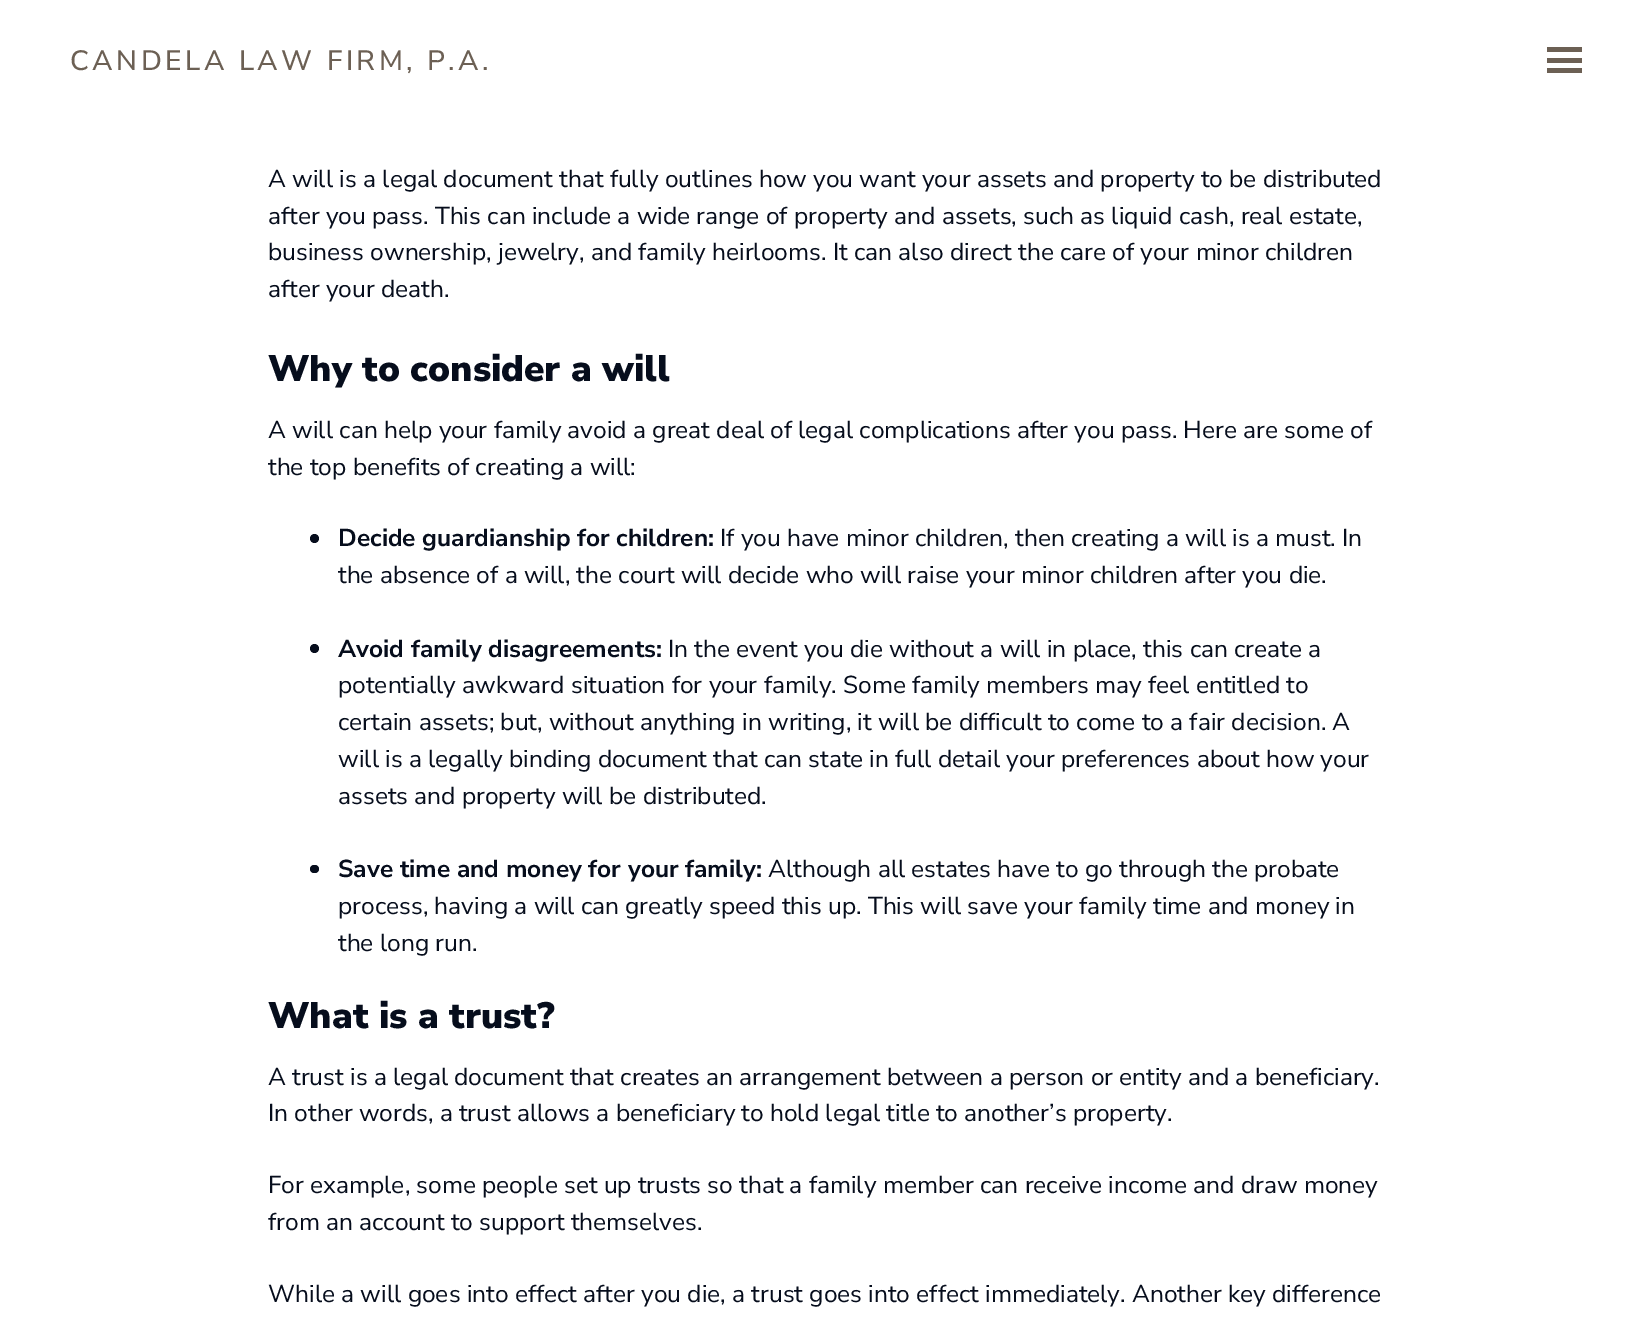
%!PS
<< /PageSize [1651 1332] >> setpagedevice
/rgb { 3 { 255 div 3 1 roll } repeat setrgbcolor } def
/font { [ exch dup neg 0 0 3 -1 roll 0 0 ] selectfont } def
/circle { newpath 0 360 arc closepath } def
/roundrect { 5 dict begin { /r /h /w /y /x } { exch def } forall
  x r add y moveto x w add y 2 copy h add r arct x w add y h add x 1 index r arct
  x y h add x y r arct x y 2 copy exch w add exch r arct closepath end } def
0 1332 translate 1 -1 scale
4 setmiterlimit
255 255 255 rgb
0 0 1651 1332 rectfill
[
  [1547 58 35 5 108 96 84]
  [1547 47 35 5 108 96 84]
  [1547 68 35 5 108 96 84]
] { aload pop rgb rectfill } forall
6 13 28 rgb
314.5 538.5 4.5 circle fill
314.5 648.5 4.5 circle fill
310 865 9 8 4 roundrect fill
/NunitoSans-Medium 28 font
108 96 84 rgb
70 70 moveto 3.5 0 (CANDELA LAW FIRM, P.A.) ashow
/NunitoSans-Regular 24.5 font
6 13 28 rgb
[
  [(A will is a legal document that fully outlines how you want your assets and property to be distributed) 268 187]
  [(after you pass. This can include a wide range of property and assets, such as liquid cash, real estate,) 268 224]
  [(business ownership, jewelry, and family heirlooms. It can also direct the care of your minor children) 268 260]
  [(after your death.) 268 297]
] { aload pop moveto show } forall
/NunitoSans-Black 36.75 font
268 381 moveto (Why to consider a will) show
/NunitoSans-Regular 24.5 font
268 438 moveto (A will can help your family avoid a great deal of legal complications after you pass. Here are some of) show
268 475 moveto (the top benefits of creating a will:) show
/NunitoSans-Bold 24.5 font
338 546 moveto (Decide guardianship for children:) show
/NunitoSans-Regular 24.5 font
720 546 moveto (If you have minor children, then creating a will is a must. In) show
338 583 moveto (the absence of a will, the court will decide who will raise your minor children after you die.) show
/NunitoSans-Bold 24.5 font
338 657 moveto (Avoid family disagreements:) show
/NunitoSans-Regular 24.5 font
[
  [(In the event you die without a will in place, this can create a) 668 657]
  [(potentially awkward situation for your family. Some family members may feel entitled to) 338 693]
  [(certain assets; but, without anything in writing, it will be difficult to come to a fair decision. A) 338 730]
  [(will is a legally binding document that can state in full detail your preferences about how your) 338 767]
  [(assets and property will be distributed.) 338 804]
] { aload pop moveto show } forall
/NunitoSans-Bold 24.5 font
338 877 moveto (Save time and money for your family:) show
/NunitoSans-Regular 24.5 font
[
  [(Although all estates have to go through the probate) 768 877]
  [(process, having a will can greatly speed this up. This will save your family time and money in) 338 914]
  [(the long run.) 338 951]
] { aload pop moveto show } forall
/NunitoSans-Black 36.75 font
268 1028 moveto (What is a trust?) show
/NunitoSans-Regular 24.5 font
[
  [(A trust is a legal document that creates an arrangement between a person or entity and a beneficiary.) 268 1085]
  [(In other words, a trust allows a beneficiary to hold legal title to another’s property.) 268 1121]
  [(For example, some people set up trusts so that a family member can receive income and draw money) 268 1193]
  [(from an account to support themselves.) 268 1230]
  [(While a will goes into effect after you die, a trust goes into effect immediately. Another key difference) 268 1302]
] { aload pop moveto show } forall
showpage
